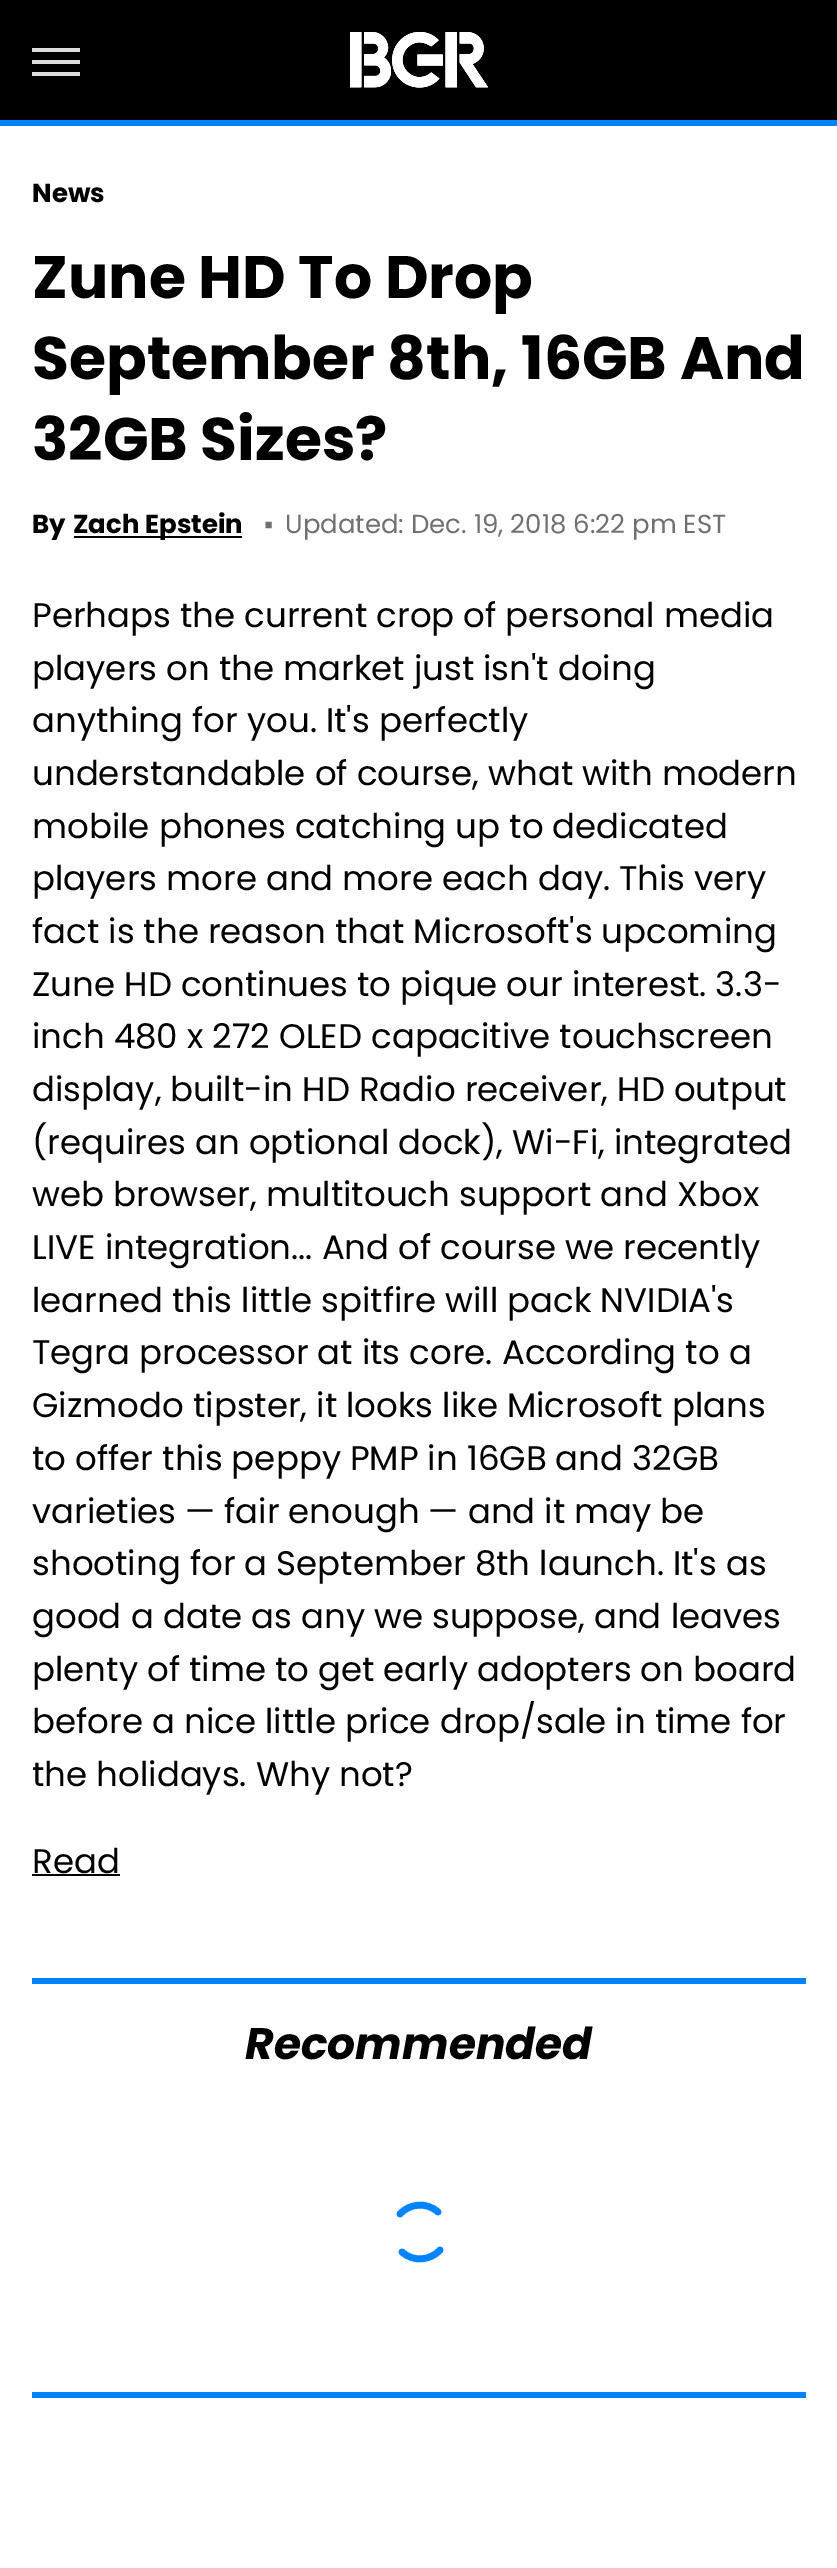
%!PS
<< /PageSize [837 2568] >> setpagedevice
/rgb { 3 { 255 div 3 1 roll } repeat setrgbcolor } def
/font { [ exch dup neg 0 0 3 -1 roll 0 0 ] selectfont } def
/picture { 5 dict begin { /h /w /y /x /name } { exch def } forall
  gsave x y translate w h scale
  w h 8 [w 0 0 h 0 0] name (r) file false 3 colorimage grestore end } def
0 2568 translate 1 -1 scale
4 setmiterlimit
255 255 255 rgb
0 0 837 2568 rectfill
[
  [0 0 837 120 0 0 0]
  [0 120 837 6 2 132 255]
  [32 48 48 4 221 221 221]
  [32 60 48 4 221 221 221]
  [32 72 48 4 221 221 221]
] { aload pop rgb rectfill } forall
(img/1.rgb) 350 32 138 56 picture
[
  [74 536 168 2 0 0 0]
  [32 1874 88 2 0 0 0]
  [32 1978 774 6 2 132 255]
  [32 2392 774 6 2 132 255]
] { aload pop rgb rectfill } forall
6.7 setlinewidth
1 setlinecap
440 2250 moveto 430 2261 413 2262 402 2252 curveto 400 2214 moveto 410 2203 427 2202 438 2212 curveto stroke
/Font-Bold 26 font
0 0 0 rgb
32 202 moveto (News) show
/Font-Bold 60 font
[
  [(Zune HD To Drop) 32 298]
  [(September 8th, 16GB And) 32 379]
  [(32GB Sizes?) 32 460]
] { aload pop moveto show } forall
/Font-Bold 26 font
32 533 moveto (By) show
73 533 moveto (Zach Epstein) show
/LiberationSans-Regular 26 font
112 112 112 rgb
264 533 moveto (▪) show
/poppins-Regular 26 font
285 533 moveto (Updated: Dec. 19, 2018 6:22 pm EST) show
/poppins-Regular 34 font
0 0 0 rgb
[
  [(Perhaps the current crop of personal media) 32 627]
  [(players on the market just isn't doing) 32 680]
  [(anything for you. It's perfectly) 32 732]
  [(understandable of course, what with modern) 32 785]
  [(mobile phones catching up to dedicated) 32 838]
  [(players more and more each day. This very) 32 890]
  [(fact is the reason that Microsoft's upcoming) 32 943]
  [(Zune HD continues to pique our interest. 3.3-) 32 996]
  [(inch 480 x 272 OLED capacitive touchscreen) 32 1048]
  [(display, built-in HD Radio receiver, HD output) 32 1101]
  [(\(requires an optional dock\), Wi-Fi, integrated) 32 1154]
  [(web browser, multitouch support and Xbox) 32 1206]
  [(LIVE integration... And of course we recently) 32 1259]
  [(learned this little spitfire will pack NVIDIA's) 32 1312]
  [(Tegra processor at its core. According to a) 32 1364]
  [(Gizmodo tipster, it looks like Microsoft plans) 32 1417]
  [(to offer this peppy PMP in 16GB and 32GB) 32 1470]
  [(varieties — fair enough — and it may be) 32 1523]
  [(shooting for a September 8th launch. It's as) 32 1575]
  [(good a date as any we suppose, and leaves) 32 1628]
  [(plenty of time to get early adopters on board) 32 1681]
  [(before a nice little price drop/sale in time for) 32 1733]
  [(the holidays. Why not?) 32 1786]
  [(Read) 32 1873]
] { aload pop moveto show } forall
/poppins-BoldItalic 44 font
245 2059 moveto (Recommended) show
showpage
